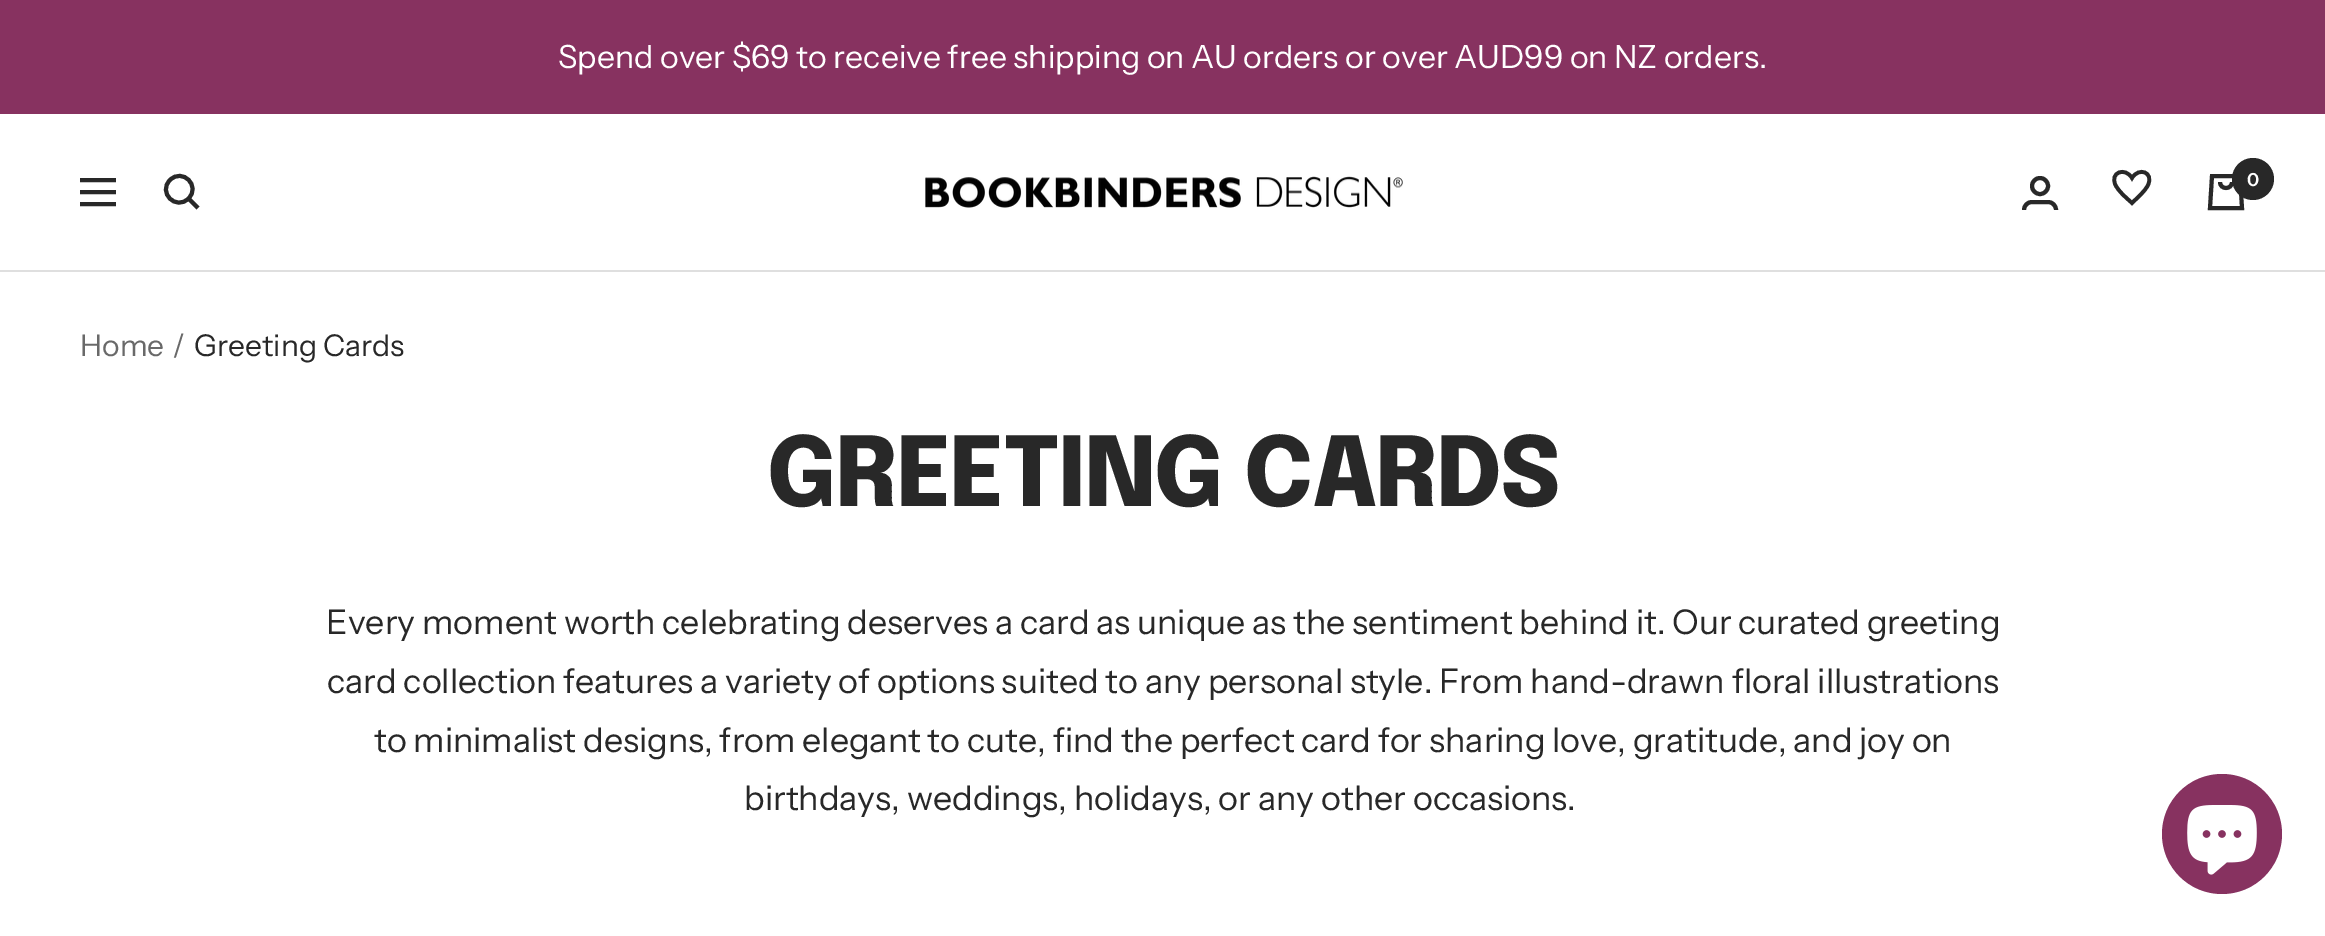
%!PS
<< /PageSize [2325 936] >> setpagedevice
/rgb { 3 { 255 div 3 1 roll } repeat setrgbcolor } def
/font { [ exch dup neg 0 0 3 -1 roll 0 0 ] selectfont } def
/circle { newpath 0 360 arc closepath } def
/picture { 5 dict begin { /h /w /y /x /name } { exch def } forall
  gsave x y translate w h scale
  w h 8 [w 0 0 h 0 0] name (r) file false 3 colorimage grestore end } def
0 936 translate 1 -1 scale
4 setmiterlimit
255 255 255 rgb
0 0 2325 936 rectfill
135 50 96 rgb
0 0 2325 114 rectfill
223 223 223 rgb
0 270 2325 2 rectfill
40 40 40 rgb
4 setlinewidth
80 180 moveto 116 180 lineto 80 204 moveto 116 204 lineto closepath 80 192 moveto 116 192 lineto closepath stroke
188.5 198.5 moveto 201 186 182.5 167.5 170 180 curveto 157.5 192.5 176 211 188.5 198.5 curveto closepath 188.5 198.5 moveto 198 208 lineto stroke
(img/1.rgb) 925 176 478 32 picture
2040 186 8 circle stroke
2024 210 moveto 2024 205.5 2027.5 202 2032 202 curveto 2048 202 lineto 2052.5 202 2056 205.5 2056 210 curveto stroke
3.7 setlinewidth
2132 203 moveto 2137.5 197.5 2144.5 192 2148 185 curveto 2154 172.5 2139 166.5 2132 178 curveto 2125 166.5 2109.5 172.5 2115.5 185 curveto 2119 192 2126 197.5 2132 203 curveto closepath stroke
4 setlinewidth
2212 176 moveto 2240 176 lineto 2242 208 lineto 2210 208 lineto closepath 2220 182 moveto 2220 190 2232 190 2232 182 curveto stroke
2253 179 21 circle fill
135 50 96 rgb
2222 834 60 circle fill
(img/2.rgb) 2187 805 70 70 picture
/InstrumentSans-Regular 32 font
255 255 255 rgb
558 68 moveto (Spend over $69 to receive free shipping on AU orders or over AUD99 on NZ orders.) show
/InstrumentSans-SemiBold 18 font
2247 186 moveto (0) show
/InstrumentSans-Regular 30 font
105 105 105 rgb
80 356 moveto (Home) show
172 356 moveto (/) show
40 40 40 rgb
194 356 moveto (Greeting Cards) show
/Epilogue-ExtraBold 96 font
767 506 moveto -2 0 (GREETING CARDS) ashow
/InstrumentSans-Regular 34 font
[
  [(Every moment worth celebrating deserves a card as unique as the sentiment behind it. Our curated greeting) 326 634]
  [(card collection features a variety of options suited to any personal style. From hand-drawn floral illustrations) 327 693]
  [(to minimalist designs, from elegant to cute, find the perfect card for sharing love, gratitude, and joy on) 374 752]
  [(birthdays, weddings, holidays, or any other occasions.) 744 810]
] { aload pop moveto show } forall
showpage
